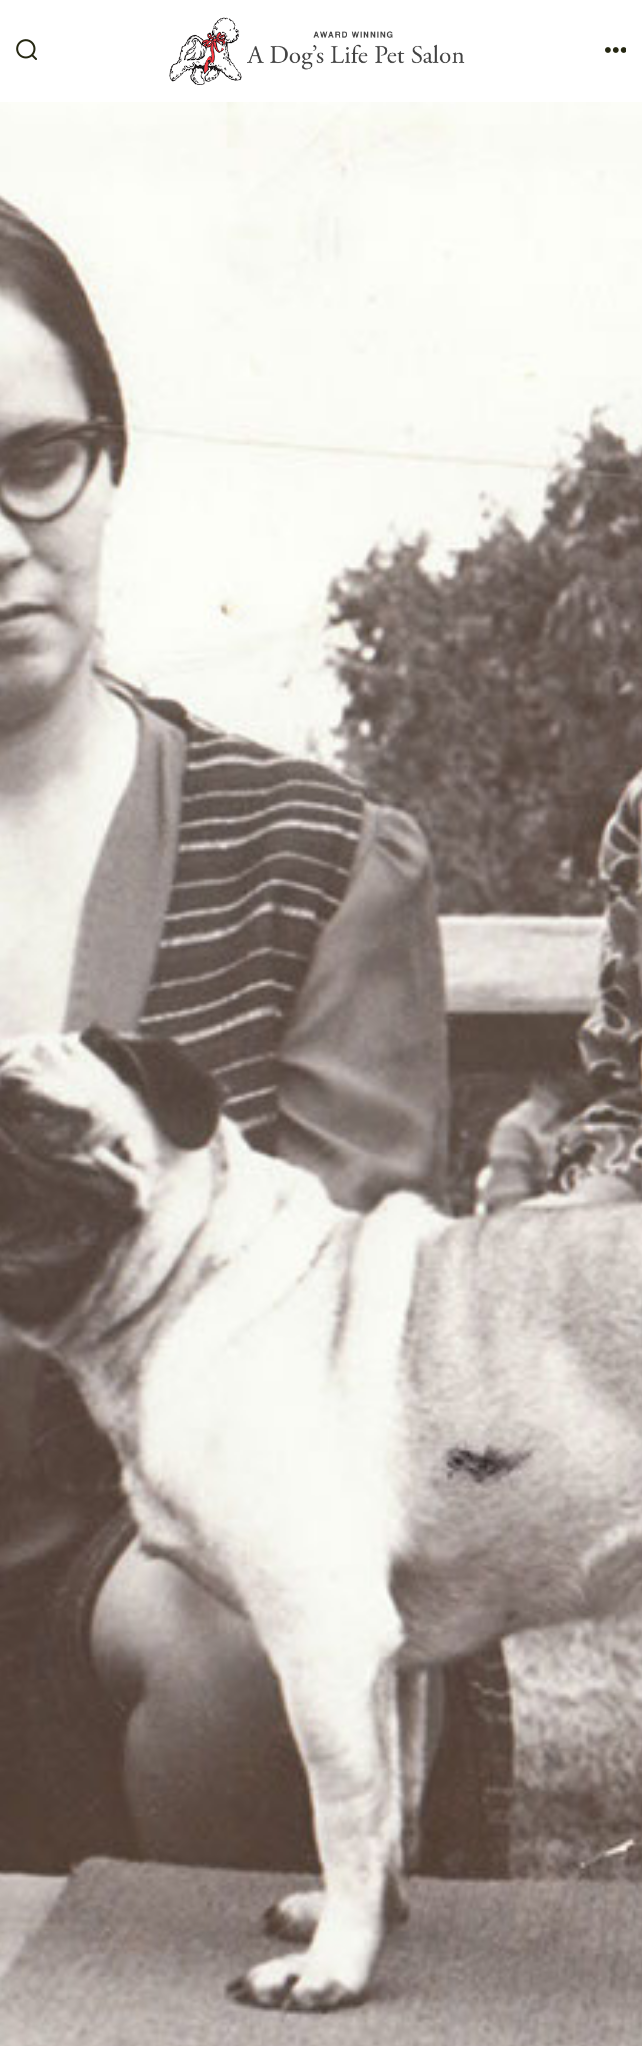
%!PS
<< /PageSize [642 2046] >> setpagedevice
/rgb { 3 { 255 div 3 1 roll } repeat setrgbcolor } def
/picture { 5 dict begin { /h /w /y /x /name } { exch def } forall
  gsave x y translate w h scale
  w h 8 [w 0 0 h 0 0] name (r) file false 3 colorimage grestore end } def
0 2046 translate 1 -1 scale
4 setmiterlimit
255 255 255 rgb
0 0 642 2046 rectfill
(img/1.rgb) 16 39 21 21 picture
(img/2.rgb) 169 17 296 69 picture
(img/3.rgb) 605 47 21 6 picture
(img/4.rgb) 0 102 642 1944 picture
showpage
